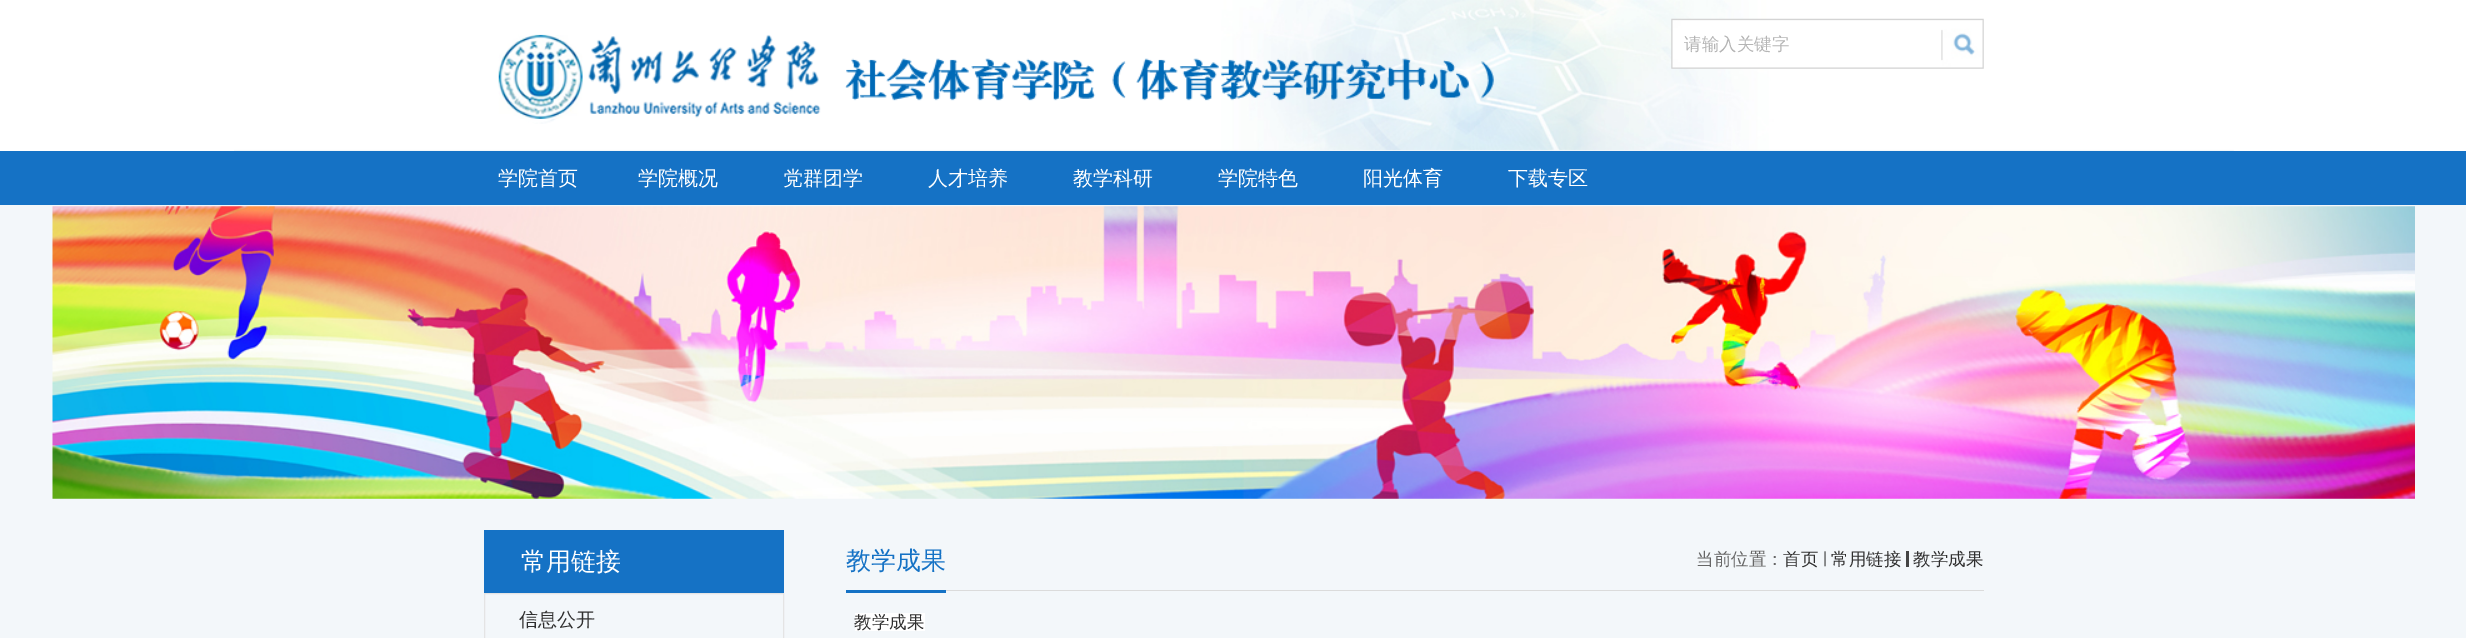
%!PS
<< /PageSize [2466 638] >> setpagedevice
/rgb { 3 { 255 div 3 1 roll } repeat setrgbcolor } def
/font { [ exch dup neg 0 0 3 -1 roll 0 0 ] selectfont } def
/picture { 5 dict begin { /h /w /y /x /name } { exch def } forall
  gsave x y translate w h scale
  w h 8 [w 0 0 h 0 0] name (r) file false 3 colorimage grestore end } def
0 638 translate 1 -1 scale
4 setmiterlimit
243 247 250 rgb
0 0 2466 638 rectfill
255 255 255 rgb
0 0 2466 151 rectfill
(img/1.rgb) 234 0 2000 151 picture
(img/2.rgb) 498 34 996 90 picture
(img/3.rgb) 1671 18 313 51 picture
21 114 197 rgb
0 151 2466 54 rectfill
(img/4.rgb) 52 206 2363 293 picture
484 530 300 63 rectfill
228 228 228 rgb
484.5 593.5 299 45 rectstroke
219 219 219 rgb
946 590 1038 1 rectfill
21 114 197 rgb
846 590 100 3 rectfill
(img/5.rgb) 1824 551 2 16 picture
68 68 68 rgb
1906 551 3 16 rectfill
255 255 255 rgb
855 613 70 18 rectfill
/WenQuanYiZenHei-Medium 17.5 font
181 181 181 rgb
1684 50 moveto (请输入关键字) show
/WenQuanYiZenHei-Medium 20 font
255 255 255 rgb
[
  [(学院首页) 498 185]
  [(学院概况) 638 185]
  [(党群团学) 783 185]
  [(人才培养) 928 185]
  [(教学科研) 1073 185]
  [(学院特色) 1218 185]
  [(阳光体育) 1363 185]
  [(下载专区) 1508 185]
] { aload pop moveto show } forall
/WenQuanYiZenHei-Medium 25 font
521 570 moveto (常用链接) show
/WenQuanYiZenHei-Medium 19 font
47 47 47 rgb
519 626 moveto (信息公开) show
/WenQuanYiZenHei-Medium 25 font
21 114 197 rgb
846 569 moveto (教学成果) show
/WenQuanYiZenHei-Medium 17.5 font
102 102 102 rgb
1696 565 moveto (当前位置：) show
47 47 47 rgb
[
  [(首页) 1783 565]
  [(常用链接) 1831 565]
  [(教学成果) 1913 565]
  [(教学成果) 854 628]
] { aload pop moveto show } forall
showpage
